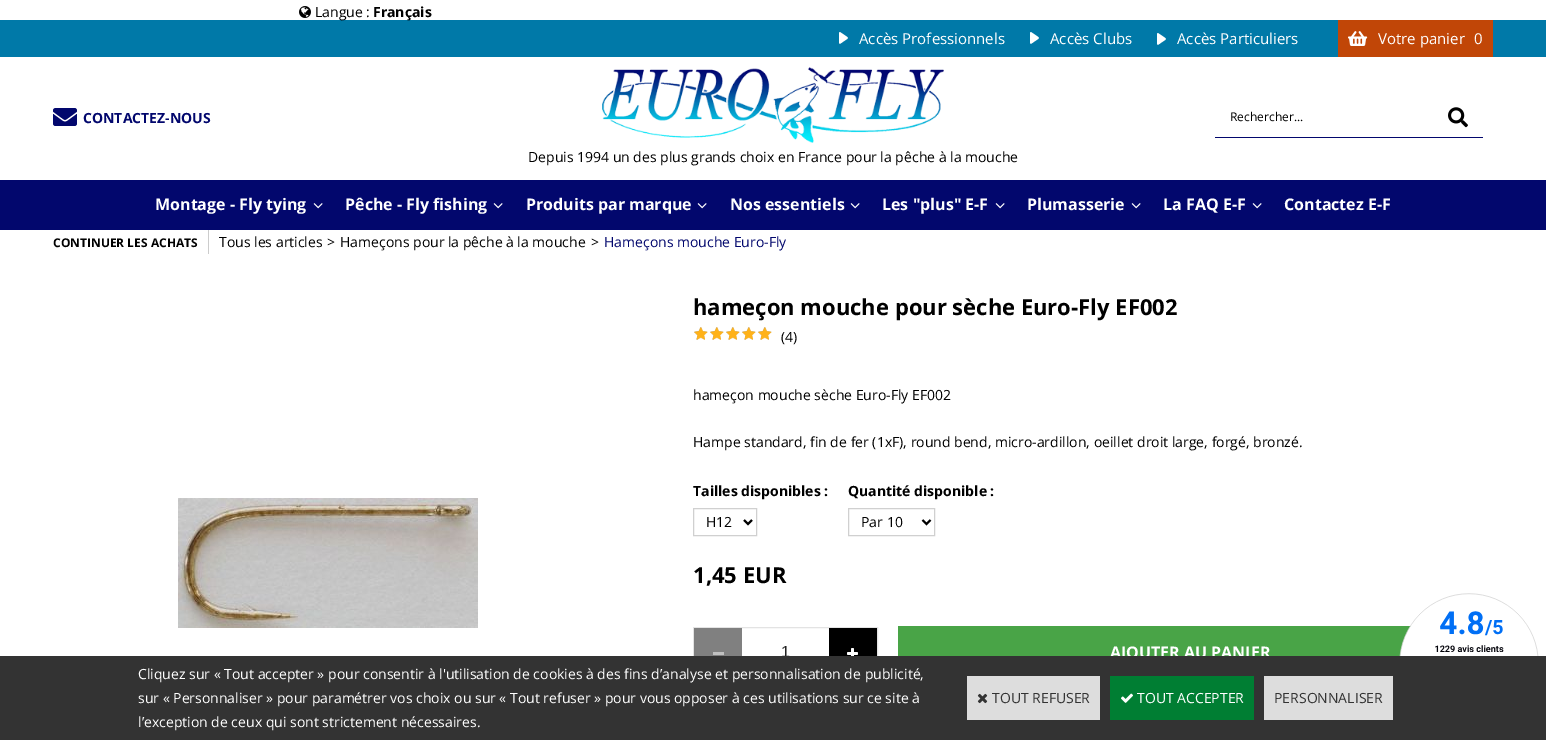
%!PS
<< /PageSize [1546 740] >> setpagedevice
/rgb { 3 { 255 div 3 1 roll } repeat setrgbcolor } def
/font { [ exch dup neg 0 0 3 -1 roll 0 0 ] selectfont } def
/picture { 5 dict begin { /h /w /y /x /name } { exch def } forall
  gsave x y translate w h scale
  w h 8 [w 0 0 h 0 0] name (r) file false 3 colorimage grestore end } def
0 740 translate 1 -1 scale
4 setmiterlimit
255 255 255 rgb
0 0 1546 740 rectfill
(img/1.rgb) 299 6 12 12 picture
0 121 168 rgb
0 20 1546 37 rectfill
(img/2.rgb) 839 32 9 12 picture
(img/2.rgb) 1030 32 9 12 picture
(img/2.rgb) 1157 33 9 12 picture
193 70 7 rgb
1338 20 155 37 rectfill
(img/3.rgb) 1348 31 20 15 picture
(img/4.rgb) 53 108 24 18 picture
2 7 109 rgb
1215 137 268 1 rectfill
(img/5.rgb) 1448 107 20 21 picture
(img/6.rgb) 602 67 342 76 picture
0 180 1546 50 rectfill
(img/7.rgb) 313 203 10 6 picture
(img/7.rgb) 493 203 10 6 picture
(img/7.rgb) 697 203 10 6 picture
(img/7.rgb) 850 203 10 6 picture
(img/7.rgb) 995 203 10 6 picture
(img/7.rgb) 1131 203 10 6 picture
(img/7.rgb) 1252 203 10 6 picture
204 204 204 rgb
208 230 1 24 rectfill
(img/8.rgb) 178 498 300 130 picture
(img/9.rgb) 694 327 78 13 picture
(img/10.rgb) 694 327 78 13 picture
208 208 208 rgb
693.5 508.5 63 27 rectstroke
0 0 0 rgb
2 setlinewidth
744 520 moveto 748 524 lineto 752 520 lineto stroke
208 208 208 rgb
1 setlinewidth
848.5 508.5 86 27 rectstroke
0 0 0 rgb
2 setlinewidth
922.5 520 moveto 926.5 524 lineto 930.5 520 lineto stroke
227 227 227 rgb
1 setlinewidth
693.5 627.5 184 49 rectstroke
[
  [694 628 48 28 128 128 128]
  [713 652 11 3 192 192 192]
  [829 628 48 28 0 0 0]
] { aload pop rgb rectfill } forall
(img/11.rgb) 847 648 11 8 picture
73 164 71 rgb
898 626 513 30 rectfill
(img/14.rgb) 1399 593 140 63 picture
/OpenSans-Regular 14 font
0 0 0 rgb
315 17 moveto (Langue :) show
/OpenSans-Bold 14 font
373 17 moveto (Français) show
/OpenSans-Regular 15 font
255 255 255 rgb
[
  [(Accès Professionnels) 859 44]
  [(Accès Clubs) 1050 44]
  [(Accès Particuliers) 1177 44]
  [(Votre panier) 1378 44]
  [(0) 1474 44]
] { aload pop moveto show } forall
/OpenSans-Bold 14 font
2 7 109 rgb
83 123 moveto (CONTACTEZ-NOUS) show
/OpenSans-Regular 12 font
0 0 0 rgb
1230 121 moveto (Rechercher...) show
/OpenSans-Regular 14 font
528 162 moveto (Depuis 1994 un des plus grands choix en France pour la pêche à la mouche) show
/OpenSans-Bold 16 font
255 255 255 rgb
[
  [(Montage - Fly tying) 155 210]
  [(Pêche - Fly fishing) 345 210]
  [(Produits par marque) 526 210]
  [(Nos essentiels) 730 210]
  [(Les "plus" E-F) 882 210]
  [(Plumasserie) 1027 210]
  [(La FAQ E-F) 1163 210]
  [(Contactez E-F) 1284 210]
] { aload pop moveto show } forall
/OpenSans-Bold 12 font
0 0 0 rgb
53 247 moveto (CONTINUER LES ACHATS) show
/OpenSans-Regular 14 font
[
  [(Tous les articles) 219 247]
  [(>) 327 247]
  [(Hameçons pour la pêche à la mouche) 340 247]
  [(>) 591 247]
] { aload pop moveto show } forall
2 7 109 rgb
604 247 moveto (Hameçons mouche Euro-Fly) show
/OpenSans-Bold 22 font
0 0 0 rgb
693 315 moveto (hameçon mouche pour sèche Euro-Fly EF002) show
/OpenSans-Regular 14 font
[
  [(\(4\)) 781 342]
  [(hameçon mouche sèche Euro-Fly EF002) 693 400]
  [(Hampe standard, fin de fer \(1xF\), round bend, micro-ardillon, oeillet droit large, forgé, bronzé.) 693 447]
] { aload pop moveto show } forall
/OpenSans-Bold 14 font
693 496 moveto (Tailles disponibles :) show
/OpenSans-Regular 14 font
706 527 moveto (H12) show
/OpenSans-Bold 14 font
848 496 moveto (Quantité disponible :) show
/OpenSans-Regular 14 font
861 527 moveto (Par 10) show
/OpenSans-Bold 22 font
693 583 moveto (1,45 EUR) show
/LiberationSans-Regular 16 font
33 33 33 rgb
781 657 moveto (1) show
/OpenSans-Bold 16 font
255 255 255 rgb
1110 658 moveto (AJOUTER AU PANIER) show
51 51 51 rgb
0 656 1546 84 rectfill
/OpenSans-Regular 14 font
255 255 255 rgb
[
  [(Cliquez sur « Tout accepter » pour consentir à l'utilisation de cookies à des fins d’analyse et personnalisation de publicité,) 138 679]
  [(sur « Personnaliser » pour paramétrer vos choix ou sur « Tout refuser » pour vous opposer à ces utilisations sur ce site à) 138 703]
  [(l’exception de ceux qui sont strictement nécessaires.) 138 727]
] { aload pop moveto show } forall
221 221 221 rgb
967 676 133 44 rectfill
(img/12.rgb) 977 693 11 11 picture
51 51 51 rgb
992 703 moveto (TOUT REFUSER) show
0 126 51 rgb
1110 676 144 44 rectfill
(img/13.rgb) 1121 693 12 10 picture
255 255 255 rgb
1137 703 moveto (TOUT ACCEPTER) show
221 221 221 rgb
1264 676 129 44 rectfill
51 51 51 rgb
1274 703 moveto (PERSONNALISER) show
showpage
